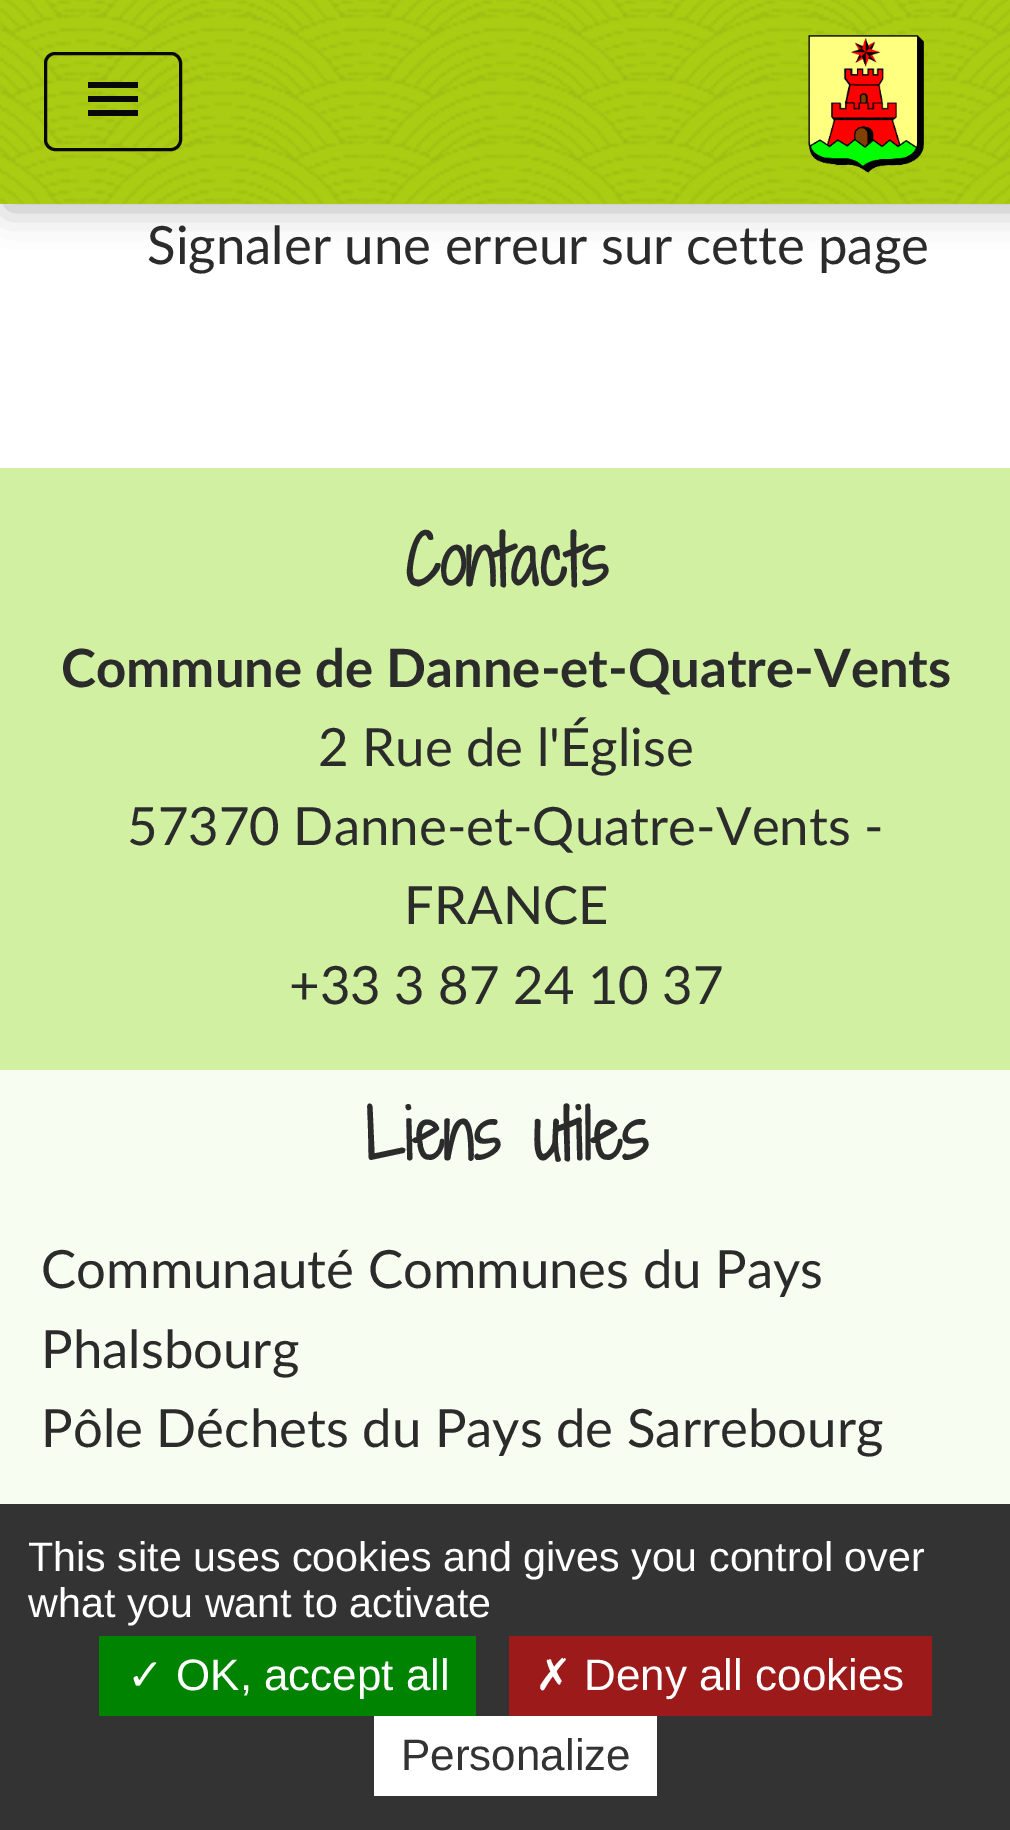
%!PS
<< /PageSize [1010 1830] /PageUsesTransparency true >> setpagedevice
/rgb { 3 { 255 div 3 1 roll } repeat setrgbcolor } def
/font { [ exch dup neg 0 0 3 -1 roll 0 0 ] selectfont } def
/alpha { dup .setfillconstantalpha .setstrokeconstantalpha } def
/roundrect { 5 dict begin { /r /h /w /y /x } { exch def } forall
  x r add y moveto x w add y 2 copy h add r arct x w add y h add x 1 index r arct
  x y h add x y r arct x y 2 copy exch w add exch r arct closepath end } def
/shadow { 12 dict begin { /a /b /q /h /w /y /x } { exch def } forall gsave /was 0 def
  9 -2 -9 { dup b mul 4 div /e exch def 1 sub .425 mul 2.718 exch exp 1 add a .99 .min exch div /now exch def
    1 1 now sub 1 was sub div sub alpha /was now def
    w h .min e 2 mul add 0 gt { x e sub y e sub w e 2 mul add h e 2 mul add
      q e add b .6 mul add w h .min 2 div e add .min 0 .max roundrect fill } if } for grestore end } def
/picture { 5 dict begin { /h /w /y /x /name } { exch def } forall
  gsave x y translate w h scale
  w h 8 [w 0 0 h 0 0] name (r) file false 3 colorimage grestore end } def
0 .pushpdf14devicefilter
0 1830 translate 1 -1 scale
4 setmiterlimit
255 255 255 rgb
0 0 1010 1830 rectfill
0 0 0 rgb
6 6 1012 203 0 18 0.3 shadow
170 204 18 rgb
0 0 1010 204 rectfill
(img/1.rgb) 0 0 1010 204 picture
8 8 9 rgb
3 setlinewidth
45.5 53.5 135 96 9.5 roundrect stroke
88 82 moveto 138 82 lineto 138 88 lineto 88 88 lineto closepath 88 102 moveto 88 96 lineto 138 96 lineto 138 102 lineto closepath 88 116 moveto 88 110 lineto 138 110 lineto 138 116 lineto closepath fill
(img/2.rgb) 808 35 116 138 picture
[
  [0 468 1010 602 209 240 162]
  [0 1070 1010 434 247 253 240]
  [0 1504 1010 326 51 51 51]
  [99 1636 377 80 0 131 0]
  [509 1636 423 80 156 26 26]
  [374 1716 283 80 255 255 255]
] { aload pop rgb rectfill } forall
/Lato-Regular 52.75 font
43 43 43 rgb
147 264 moveto (Signaler une erreur sur cette page) show
/ShadowsIntoLightTwo-Bold 66 font
405 586 moveto (Contacts) show
/Lato-Bold 52.75 font
61 687 moveto (Commune de Danne-et-Quatre-Vents) show
/Lato-Regular 52.75 font
[
  [(2 Rue de l'Église) 318 766]
  [(57370 Danne-et-Quatre-Vents -) 127 845]
  [(FRANCE) 404 924]
  [(+33 3 87 24 10 37) 289 1004]
] { aload pop moveto show } forall
/ShadowsIntoLightTwo-Bold 66 font
365 1160 moveto (Liens utiles) show
/Lato-Regular 52.75 font
[
  [(Communauté Communes du Pays) 41 1288]
  [(Phalsbourg) 41 1368]
  [(Pôle Déchets du Pays de Sarrebourg) 41 1447]
] { aload pop moveto show } forall
/LiberationSans-Regular 41.25 font
255 255 255 rgb
28 1571 moveto (This site uses cookies and gives you control over) show
28 1617 moveto (what you want to activate) show
/DejaVuSans-Regular 44 font
127 1690 moveto (✓) show
/LiberationSans-Regular 44 font
176 1690 moveto (OK, accept all) show
/DejaVuSans-Regular 44 font
535 1690 moveto (✗) show
/LiberationSans-Regular 44 font
584 1690 moveto (Deny all cookies) show
51 51 51 rgb
401 1770 moveto (Personalize) show
.poppdf14devicefilter showpage
